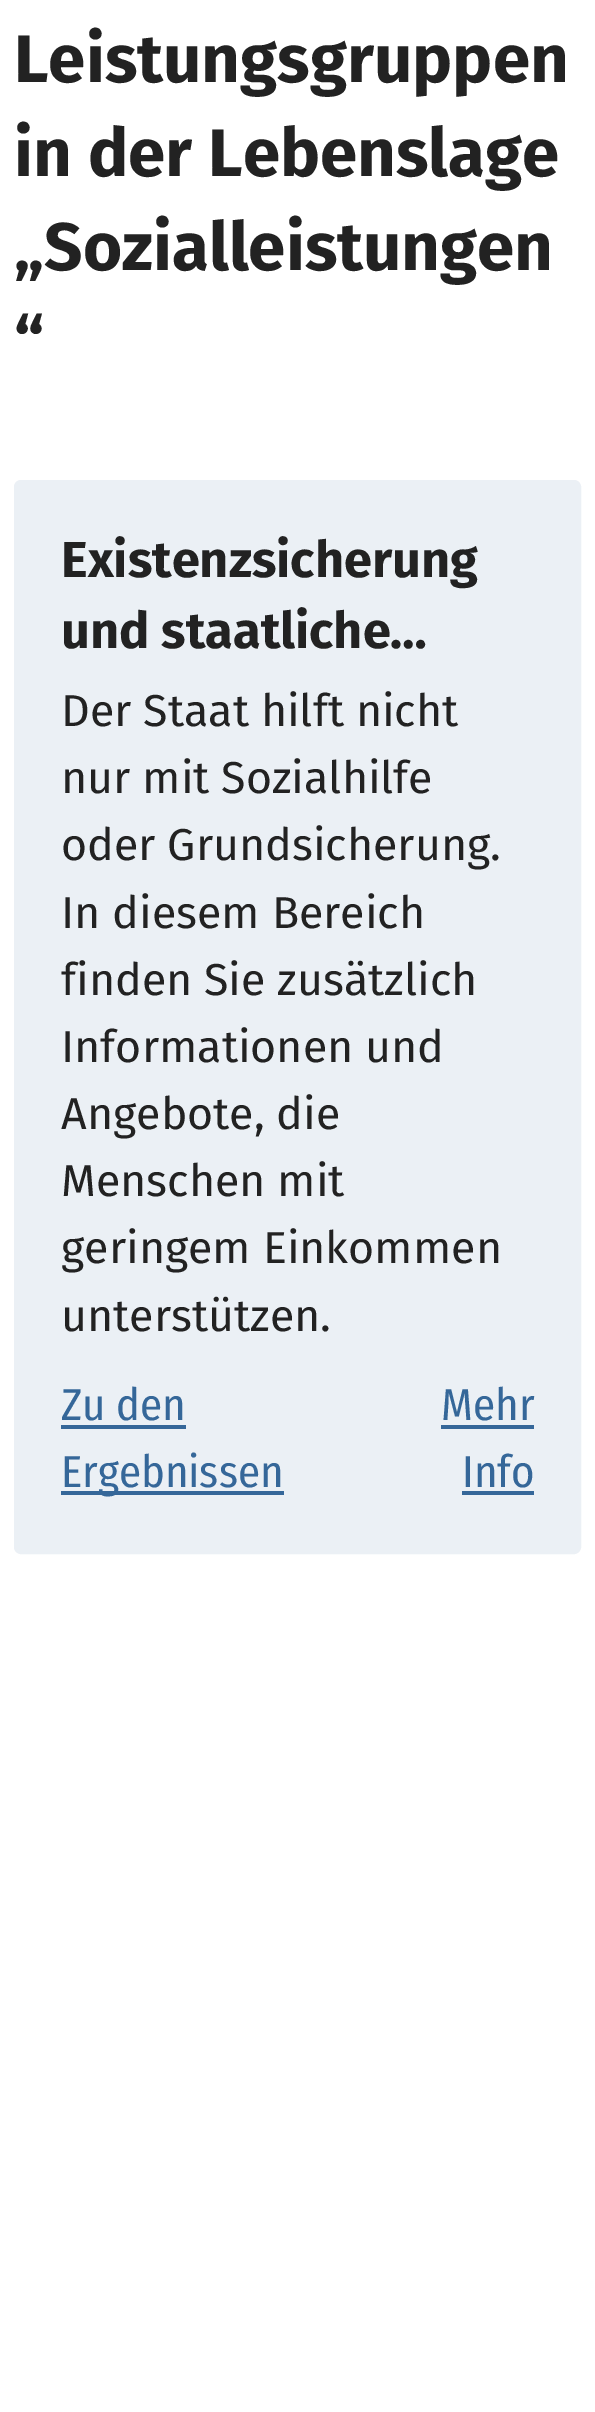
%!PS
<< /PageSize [595 2412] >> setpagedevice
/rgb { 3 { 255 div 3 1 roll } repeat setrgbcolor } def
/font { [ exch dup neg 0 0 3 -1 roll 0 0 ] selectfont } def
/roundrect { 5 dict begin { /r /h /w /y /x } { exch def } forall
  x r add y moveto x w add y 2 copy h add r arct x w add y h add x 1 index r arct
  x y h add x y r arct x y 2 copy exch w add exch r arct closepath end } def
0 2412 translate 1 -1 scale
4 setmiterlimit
255 255 255 rgb
0 0 595 2412 rectfill
235 240 245 rgb
15 481 565 1072 6 roundrect gsave fill grestore
2 setlinewidth
stroke
[
  [61 1425 125 4 53 103 153]
  [61 1491 223 4 53 103 153]
  [441 1425 93 4 53 103 153]
  [462 1491 72 4 53 103 153]
] { aload pop rgb rectfill } forall
/FiraSans-Bold 67.25 font
34 34 34 rgb
[
  [(Leistungsgruppen) 14 82]
  [(in der Lebenslage) 14 176]
  [(„Sozialleistungen) 14 270]
  [(“) 14 365]
] { aload pop moveto show } forall
/FiraSans-Bold 50.5 font
61 577 moveto (Existenzsicherung) show
61 648 moveto (und staatliche…) show
/FiraSans-Regular 44.75 font
[
  [(Der Staat hilft nicht) 61 726]
  [(nur mit Sozialhilfe) 61 793]
  [(oder Grundsicherung.) 61 860]
  [(In diesem Bereich) 61 928]
  [(finden Sie zusätzlich) 61 995]
  [(Informationen und) 61 1062]
  [(Angebote, die) 61 1129]
  [(Menschen mit) 61 1196]
  [(geringem Einkommen) 61 1263]
  [(unterstützen.) 61 1331]
] { aload pop moveto show } forall
/FiraSansCondensed-Regular 44.75 font
53 103 153 rgb
[
  [(Zu den) 61 1420]
  [(Ergebnissen) 61 1487]
  [(Mehr) 441 1420]
  [(Info) 462 1487]
] { aload pop moveto show } forall
showpage
